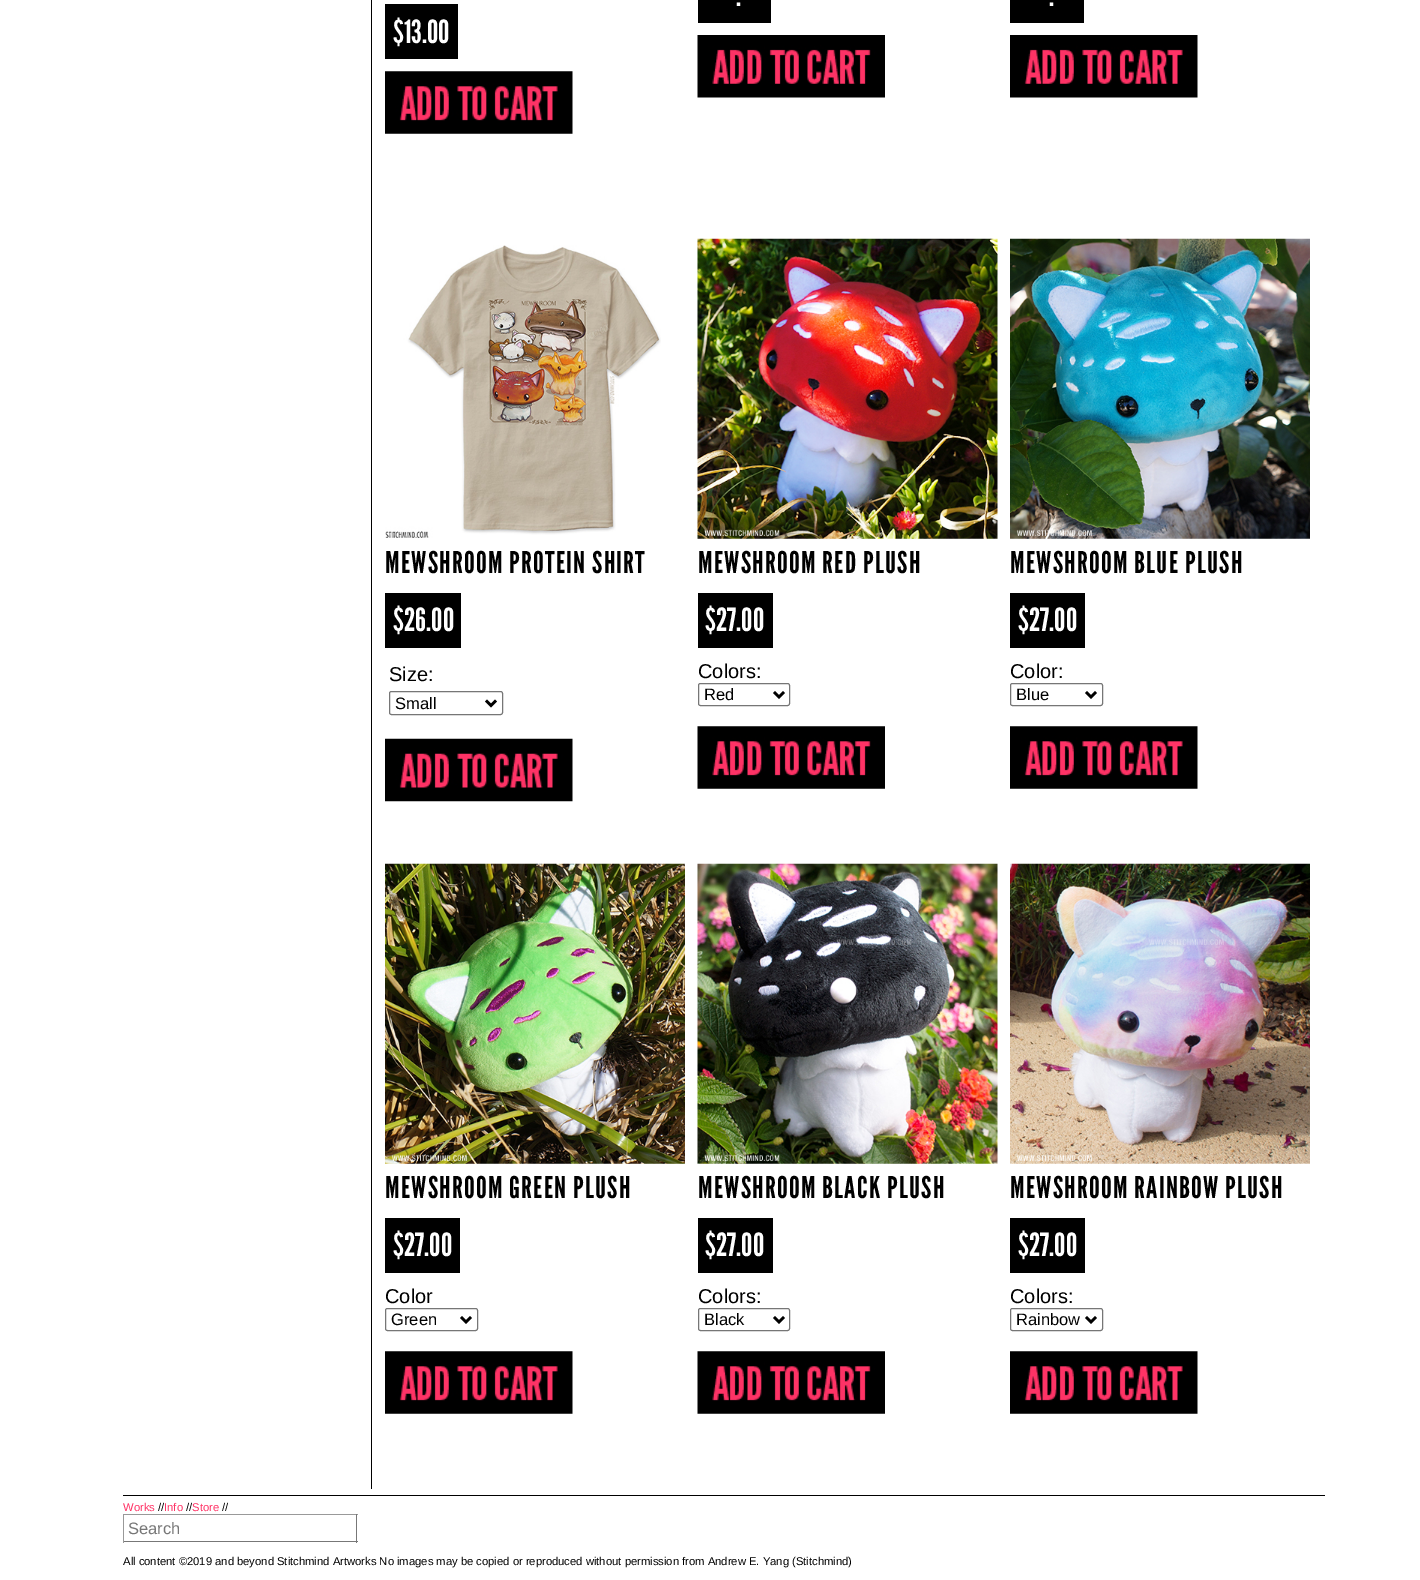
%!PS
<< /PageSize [1420 1580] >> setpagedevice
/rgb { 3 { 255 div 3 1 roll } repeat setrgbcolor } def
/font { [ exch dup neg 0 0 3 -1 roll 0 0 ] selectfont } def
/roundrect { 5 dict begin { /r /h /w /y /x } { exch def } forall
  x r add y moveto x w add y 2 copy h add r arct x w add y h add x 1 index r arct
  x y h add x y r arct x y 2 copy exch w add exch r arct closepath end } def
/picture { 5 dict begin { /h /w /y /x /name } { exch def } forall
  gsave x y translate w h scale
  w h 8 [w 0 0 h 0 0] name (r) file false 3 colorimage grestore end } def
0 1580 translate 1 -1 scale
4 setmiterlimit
255 255 255 rgb
0 0 1420 1580 rectfill
0 0 0 rgb
371 0 1 1489 rectfill
698 0 73 23 rectfill
(img/1.rgb) 697 35 188 63 picture
1010 0 74 23 rectfill
(img/2.rgb) 1010 35 188 63 picture
385 4 73 55 rectfill
(img/3.rgb) 385 71 188 63 picture
(img/4.rgb) 385 245 276 293 picture
385 593 76 55 rectfill
118 118 118 rgb
389.5 691.5 113 23 2 roundrect stroke
0 0 0 rgb
2.5 setlinewidth
486 700.5 moveto 491 705.5 lineto 496 700.5 lineto stroke
(img/5.rgb) 385 738 188 64 picture
(img/6.rgb) 697 238 301 301 picture
698 593 75 55 rectfill
118 118 118 rgb
1 setlinewidth
698.5 683.5 91 22 2 roundrect stroke
0 0 0 rgb
2.5 setlinewidth
774 692 moveto 779 697 lineto 784 692 lineto stroke
(img/7.rgb) 697 726 188 63 picture
(img/8.rgb) 1010 238 300 301 picture
1010 593 75 55 rectfill
118 118 118 rgb
1 setlinewidth
1010.5 683.5 92 22 2 roundrect stroke
0 0 0 rgb
2.5 setlinewidth
1086 692 moveto 1091 697 lineto 1096 692 lineto stroke
(img/3.rgb) 1010 726 188 63 picture
(img/9.rgb) 385 863 300 301 picture
385 1218 75 55 rectfill
118 118 118 rgb
1 setlinewidth
385.5 1308.5 92 22 2 roundrect stroke
0 0 0 rgb
2.5 setlinewidth
461 1317 moveto 466 1322 lineto 471 1317 lineto stroke
(img/3.rgb) 385 1351 188 63 picture
(img/10.rgb) 697 863 301 301 picture
698 1218 75 55 rectfill
118 118 118 rgb
1 setlinewidth
698.5 1308.5 91 22 2 roundrect stroke
0 0 0 rgb
2.5 setlinewidth
774 1317 moveto 779 1322 lineto 784 1317 lineto stroke
(img/7.rgb) 697 1351 188 63 picture
(img/11.rgb) 1010 863 300 301 picture
1010 1218 75 55 rectfill
118 118 118 rgb
1 setlinewidth
1010.5 1308.5 92 22 2 roundrect stroke
0 0 0 rgb
2.5 setlinewidth
1086 1317 moveto 1091 1322 lineto 1096 1317 lineto stroke
(img/3.rgb) 1010 1351 188 63 picture
[
  [123 1495 1202 1 0 0 0]
  [123 1514 235 1 153 153 153]
  [356 1514 1 29 119 119 119]
  [123 1541 235 1 119 119 119]
  [123 1514 1 29 153 153 153]
] { aload pop rgb rectfill } forall
/LeagueGothic-Regular 32 font
255 255 255 rgb
[
  [(.) 736 6]
  [(.) 1049 6]
  [($13.00) 393 43]
] { aload pop moveto show } forall
/LeagueGothic-Regular 30 font
0 0 0 rgb
385 573 moveto 1.25 0 (MEWSHROOM PROTEIN SHIRT) ashow
/LeagueGothic-Regular 32 font
255 255 255 rgb
393 631 moveto ($26.00) show
/LiberationSans-Regular 20 font
0 0 0 rgb
389 681 moveto (Size:) show
/LiberationSans-Regular 16.5 font
395 709 moveto (Small) show
/LeagueGothic-Regular 30 font
698 573 moveto 1.25 0 (MEWSHROOM RED PLUSH) ashow
/LeagueGothic-Regular 32 font
255 255 255 rgb
705 631 moveto ($27.00) show
/LiberationSans-Regular 20 font
0 0 0 rgb
698 678 moveto (Colors:) show
/LiberationSans-Regular 16.5 font
704 700 moveto (Red) show
/LeagueGothic-Regular 30 font
1010 573 moveto 1.25 0 (MEWSHROOM BLUE PLUSH) ashow
/LeagueGothic-Regular 32 font
255 255 255 rgb
1018 631 moveto ($27.00) show
/LiberationSans-Regular 20 font
0 0 0 rgb
1010 678 moveto (Color:) show
/LiberationSans-Regular 16.5 font
1016 700 moveto (Blue) show
/LeagueGothic-Regular 30 font
385 1198 moveto 1.25 0 (MEWSHROOM GREEN PLUSH) ashow
/LeagueGothic-Regular 32 font
255 255 255 rgb
393 1256 moveto ($27.00) show
/LiberationSans-Regular 20 font
0 0 0 rgb
385 1303 moveto (Color) show
/LiberationSans-Regular 16.5 font
391 1325 moveto (Green) show
/LeagueGothic-Regular 30 font
698 1198 moveto 1.25 0 (MEWSHROOM BLACK PLUSH) ashow
/LeagueGothic-Regular 32 font
255 255 255 rgb
705 1256 moveto ($27.00) show
/LiberationSans-Regular 20 font
0 0 0 rgb
698 1303 moveto (Colors:) show
/LiberationSans-Regular 16.5 font
704 1325 moveto (Black) show
/LeagueGothic-Regular 30 font
1010 1198 moveto 1.25 0 (MEWSHROOM RAINBOW PLUSH) ashow
/LeagueGothic-Regular 32 font
255 255 255 rgb
1018 1256 moveto ($27.00) show
/LiberationSans-Regular 20 font
0 0 0 rgb
1010 1303 moveto (Colors:) show
/LiberationSans-Regular 16.5 font
1016 1325 moveto (Rainbow) show
/LiberationSans-Regular 11.25 font
255 51 102 rgb
123 1511 moveto (Works) show
0 0 0 rgb
158 1511 moveto (//) show
255 51 102 rgb
164 1511 moveto (Info) show
0 0 0 rgb
186 1511 moveto (//) show
255 51 102 rgb
192 1511 moveto (Store) show
0 0 0 rgb
222 1511 moveto (//) show
/LiberationSans-Regular 16.5 font
119 119 119 rgb
128 1534 moveto (Search) show
/LiberationSans-Regular 11.25 font
0 0 0 rgb
123 1565 moveto (All content ©2019 and beyond Stitchmind Artworks No images may be copied or reproduced without permission from Andrew E. Yang \(Stitchmind\)) show
showpage
